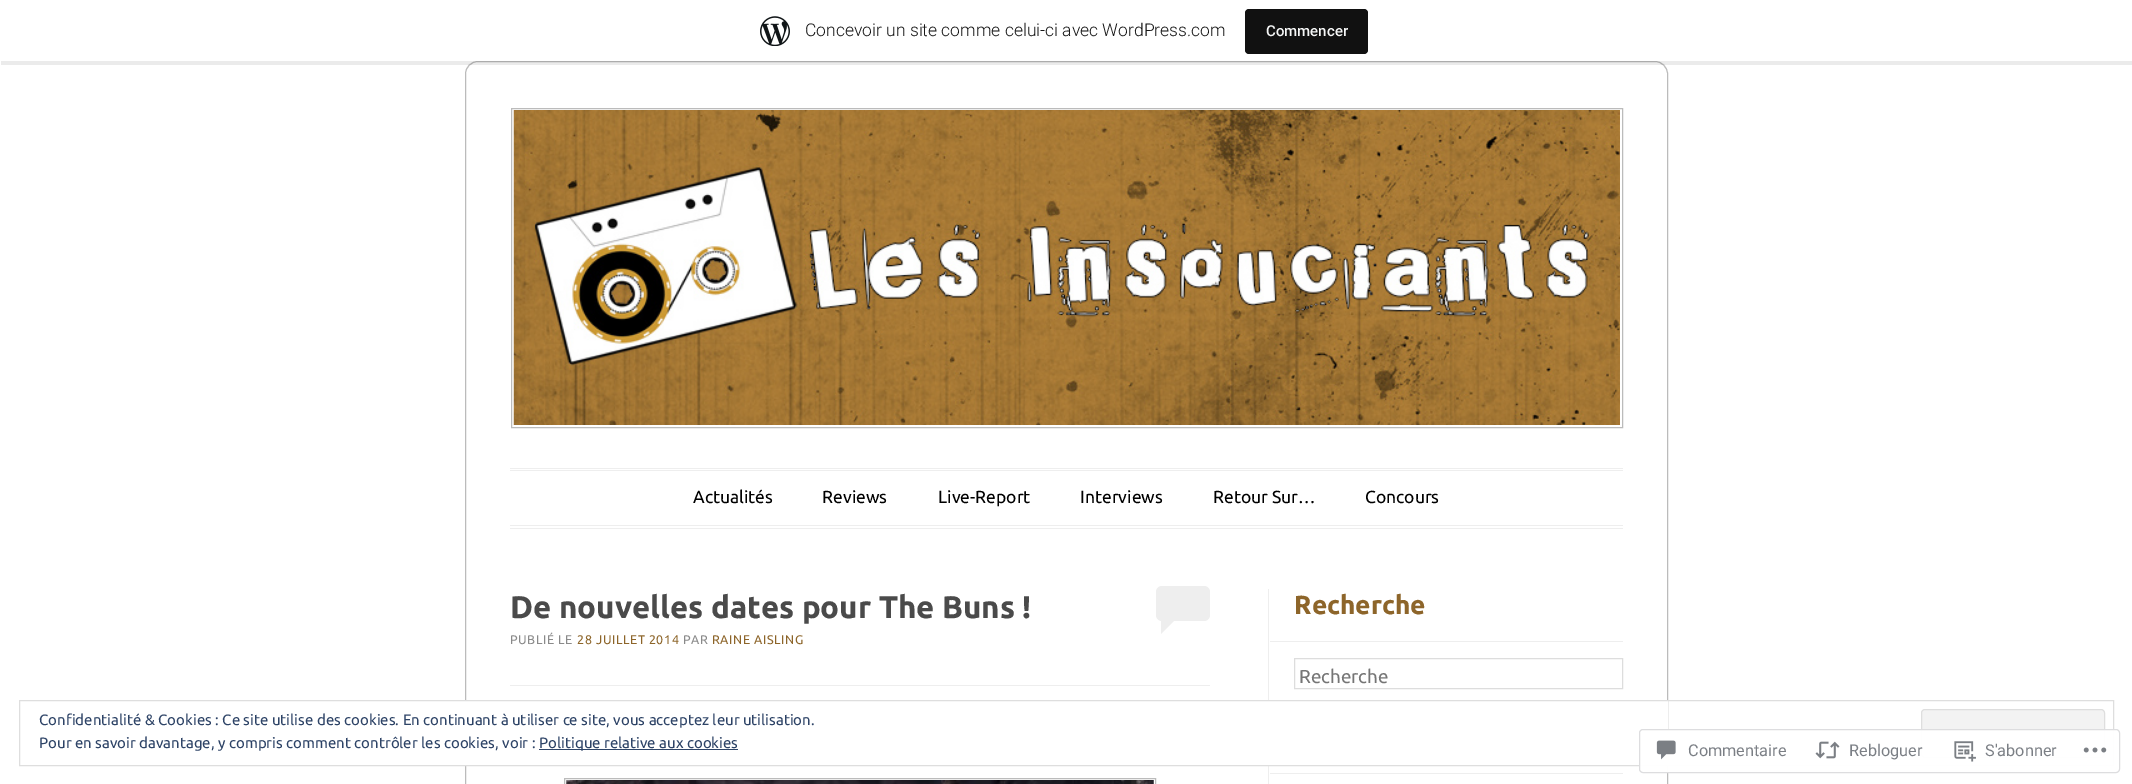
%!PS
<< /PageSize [2132 784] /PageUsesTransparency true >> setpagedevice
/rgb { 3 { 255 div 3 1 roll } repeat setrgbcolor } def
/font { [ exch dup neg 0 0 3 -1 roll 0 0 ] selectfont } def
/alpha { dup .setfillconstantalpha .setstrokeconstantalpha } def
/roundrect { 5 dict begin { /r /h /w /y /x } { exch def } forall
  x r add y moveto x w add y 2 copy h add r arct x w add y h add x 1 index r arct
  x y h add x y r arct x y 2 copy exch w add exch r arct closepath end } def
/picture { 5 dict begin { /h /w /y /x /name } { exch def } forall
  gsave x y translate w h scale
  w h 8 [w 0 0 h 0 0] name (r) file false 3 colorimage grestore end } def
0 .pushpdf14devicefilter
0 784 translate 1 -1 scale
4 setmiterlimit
255 255 255 rgb
0 0 2132 784 rectfill
187 187 187 rgb
465.5 61.5 1202 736 12.5 roundrect stroke
0.08 alpha
0 0 0 rgb
1 61 moveto 1 65 lineto 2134 65 lineto 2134 4 lineto 2132 4 lineto 2132 61 lineto closepath fill
1 alpha
(img/1.rgb) 760 16 30 30 picture
17 17 17 rgb
1245 9 123 45 4 roundrect fill
187 187 187 rgb
511.5 108.5 1111 319 rectstroke
(img/2.rgb) 513 110 1107 315 picture
[
  [510 468 1113 1 238 238 238]
  [510 470 1113 1 238 238 238]
  [510 525 1113 1 238 238 238]
  [510 528 1113 1 238 238 238]
] { aload pop rgb rectfill } forall
1156 586 54 35 6 roundrect fill
1161 634 moveto 1161 621 lineto 1174 621 lineto closepath fill
510 685 700 1 rectfill
187 187 187 rgb
564.5 778.5 591 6 rectstroke
(img/3.rgb) 566 780 588 4 picture
238 238 238 rgb
1268 589 1 195 rectfill
1270 641 353 1 rectfill
221 221 221 rgb
1294.5 658.5 328 30 rectstroke
238 238 238 rgb
1270 773 353 1 rectfill
255 255 255 rgb
465 701 1203 64 rectfill
222 222 222 rgb
19.5 700.5 2094 65 rectstroke
243 243 243 rgb
1921.5 709.5 183 48 3.5 roundrect gsave fill grestore
222 222 222 rgb
stroke
46 68 103 rgb
539 749 199 1 rectfill
0.98 alpha
255 255 255 rgb
1639 729 481 44 4 roundrect fill
220 220 222 rgb
1639.5 729.5 480 43 3.5 roundrect stroke
1 alpha
(img/4.rgb) 1656 740 20 20 picture
(img/5.rgb) 1815 741 25 18 picture
(img/6.rgb) 1954 741 22 21 picture
(img/7.rgb) 2083 747 24 6 picture
/Roboto-Light 17.5 font
23 23 23 rgb
805 36 moveto (Concevoir un site comme celui-ci avec WordPress.com) show
/Roboto-Medium 15 font
246 247 247 rgb
1266 36 moveto (Commencer) show
/Ubuntu-Regular 17.5 font
0 0 0 rgb
[
  [(Actualités) 693 503]
  [(Reviews) 822 503]
  [(Live-Report) 938 503]
  [(Interviews) 1080 503]
  [(Retour Sur…) 1213 503]
  [(Concours) 1365 503]
] { aload pop moveto show } forall
/Ubuntu-Bold 31.25 font
74 74 74 rgb
510 618 moveto (De nouvelles dates pour The Buns !) show
/Ubuntu-Regular 12.5 font
138 138 138 rgb
510 644 moveto 0.6 0 (PUBLIÉ LE) ashow
141 101 42 rgb
577 644 moveto 0.6 0 (28 JUILLET 2014) ashow
138 138 138 rgb
683 644 moveto 0.6 0 (PAR) ashow
141 101 42 rgb
712 644 moveto 0.6 0 (RAINE AISLING) ashow
/Ubuntu-Bold 26.25 font
1294 614 moveto (Recherche) show
/Ubuntu-Regular 18.75 font
117 117 117 rgb
1299 683 moveto (Recherche) show
/Ubuntu-Regular 15 font
46 68 103 rgb
[
  [(Confidentialité & Cookies : Ce site utilise des cookies. En continuant à utiliser ce site, vous acceptez leur utilisation.) 39 725]
  [(Pour en savoir davantage, y compris comment contrôler les cookies, voir :) 39 748]
  [(Politique relative aux cookies) 539 748]
] { aload pop moveto show } forall
/Roboto-Regular 16.25 font
123 127 133 rgb
[
  [(Commentaire) 1688 756]
  [(Rebloguer) 1849 756]
  [(S'abonner) 1985 756]
] { aload pop moveto show } forall
.poppdf14devicefilter showpage
